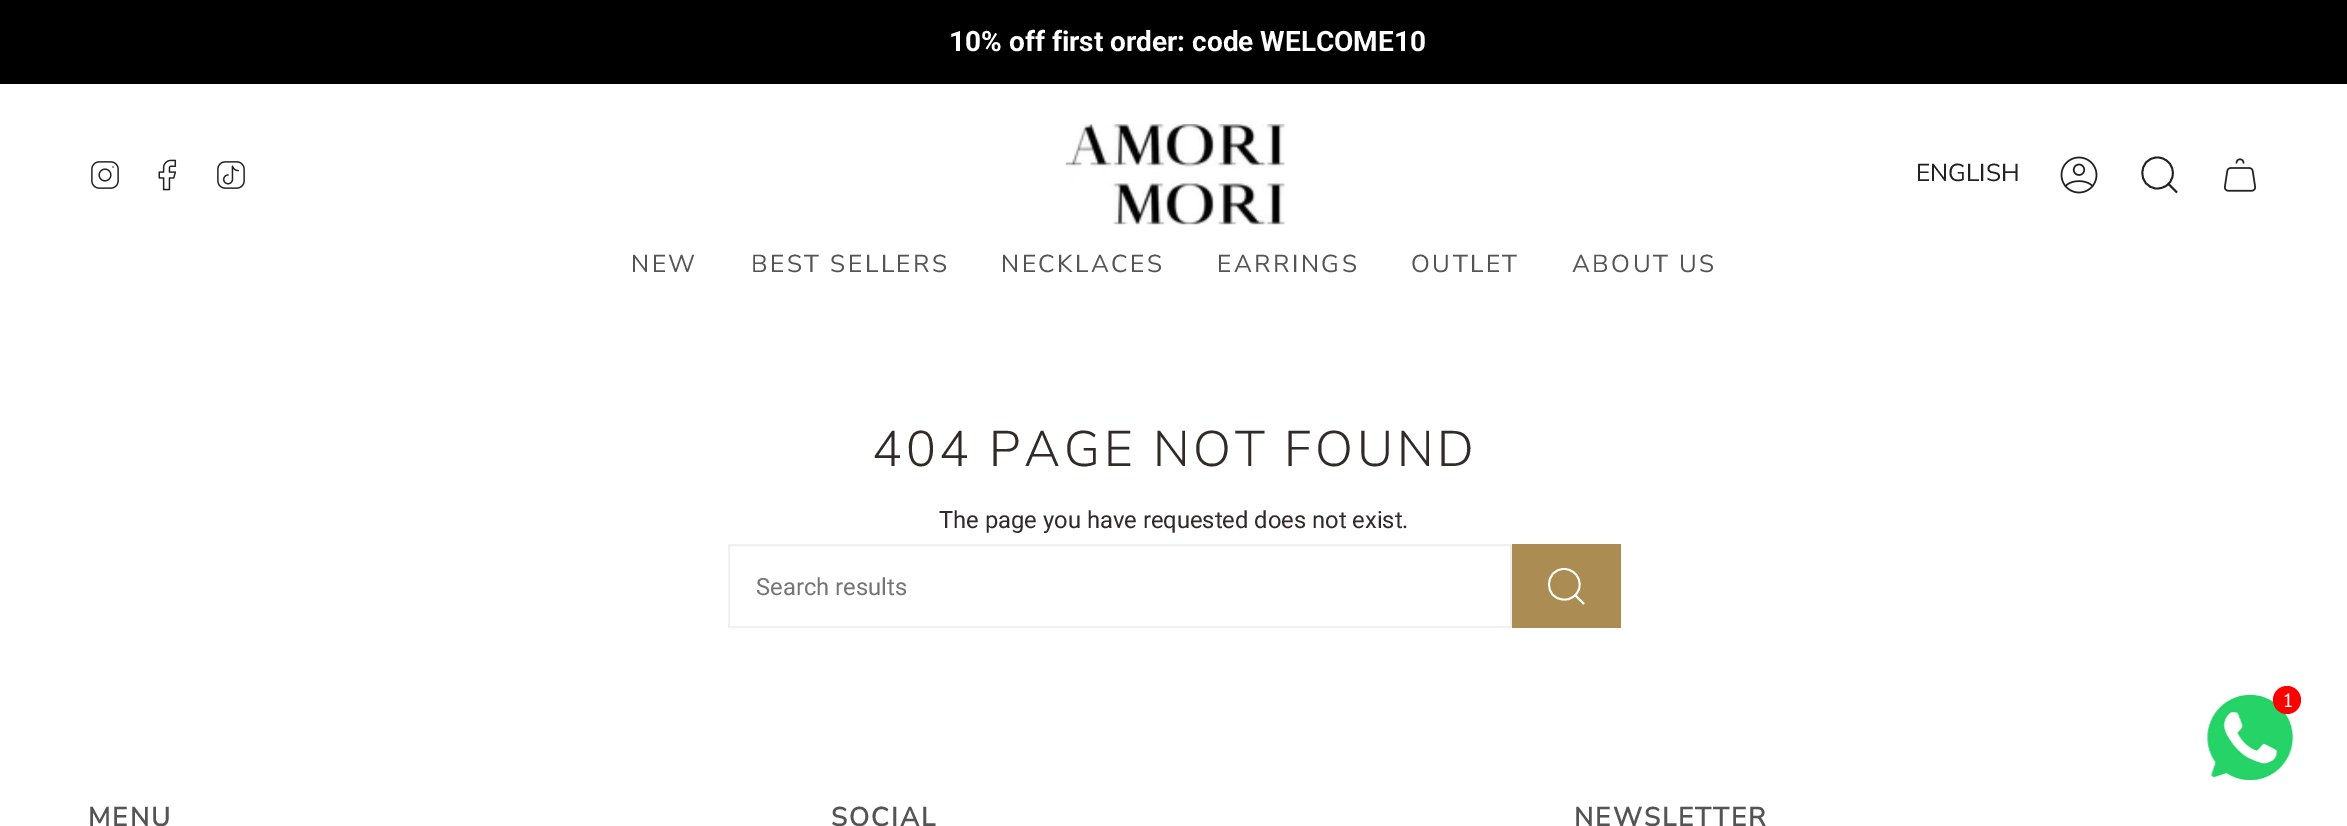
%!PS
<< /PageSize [2347 826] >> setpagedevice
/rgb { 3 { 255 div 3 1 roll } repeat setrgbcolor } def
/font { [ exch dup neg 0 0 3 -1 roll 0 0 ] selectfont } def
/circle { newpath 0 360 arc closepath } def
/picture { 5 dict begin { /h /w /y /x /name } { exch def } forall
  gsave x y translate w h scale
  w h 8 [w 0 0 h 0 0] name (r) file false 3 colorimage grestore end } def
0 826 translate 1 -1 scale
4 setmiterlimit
255 255 255 rgb
0 0 2347 826 rectfill
0 0 0 rgb
0 0 2347 84 rectfill
(img/1.rgb) 91 161 28 28 picture
(img/2.rgb) 158 159 19 32 picture
(img/3.rgb) 217 161 28 28 picture
(img/4.rgb) 1065 124 220 101 picture
(img/5.rgb) 2060 156 38 38 picture
33 33 33 rgb
1.8 setlinewidth
2157.5 157.5 moveto 2172 157.5 2179 176.5 2166.5 185.5 curveto 2164 187.5 2160.5 188.5 2157 188.5 curveto 2137 187.5 2137.5 157.5 2157.5 157.5 curveto closepath 2168.5 184 moveto 2177 192.5 lineto stroke
(img/6.rgb) 2223 158 34 34 picture
240 240 240 rgb
2 setlinewidth
729 545 782 82 rectstroke
171 140 82 rgb
1512 544 109 84 rectfill
255 255 255 rgb
1.8 setlinewidth
1564 569 moveto 1579 569 1585.5 588 1573.5 596.5 curveto 1570.5 599 1567 600 1563.5 599.5 curveto 1543.5 599 1544.5 569 1564 569 curveto closepath 1575 595 moveto 1584 604 lineto stroke
(img/7.rgb) 2207 694 87 86 picture
255 0 0 rgb
2287 700 14 circle fill
/Roboto-Bold 28 font
255 255 255 rgb
949 51 moveto (10% off first order: code WELCOME10) show
/NunitoSans-Regular 24.5 font
33 33 33 rgb
1916 181 moveto (ENGLISH) show
84 84 84 rgb
631 272 moveto 2.5 0 (NEW) ashow
751 272 moveto 2.5 0 (BEST SELLERS) ashow
1001 272 moveto 2.5 0 (NECKLACES) ashow
1217 272 moveto 2.5 0 (EARRINGS) ashow
1411 272 moveto 2.5 0 (OUTLET) ashow
1572 272 moveto 2.5 0 (ABOUT US) ashow
/NunitoSans-Light 49.9 font
50 41 41 rgb
872 466 moveto 3.75 0 (404 PAGE NOT FOUND) ashow
/Roboto-Regular 23.75 font
939 528 moveto (The page you have requested does not exist.) show
117 117 117 rgb
756 595 moveto (Search results) show
/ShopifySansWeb-Regular 19 font
255 255 255 rgb
2284 707 moveto (1) show
/NunitoSans-Bold 26.25 font
84 84 84 rgb
88 826 moveto 2 0 (MENU) ashow
831 826 moveto 2 0 (SOCIAL) ashow
1574 826 moveto 2 0 (NEWSLETTER) ashow
showpage
